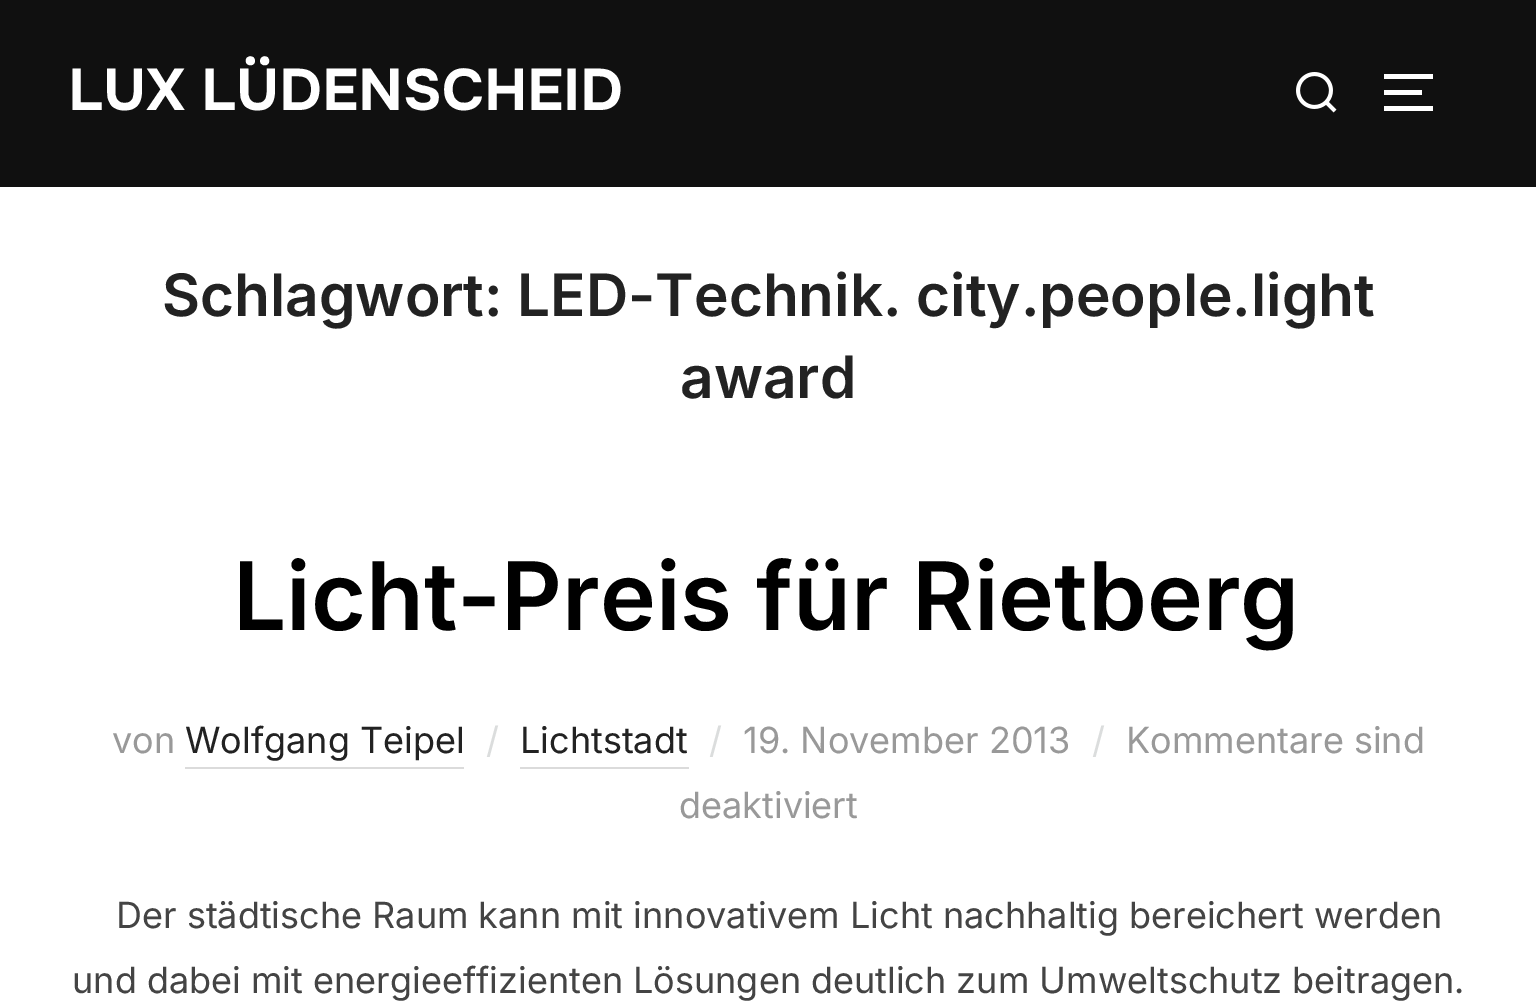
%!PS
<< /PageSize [1536 1001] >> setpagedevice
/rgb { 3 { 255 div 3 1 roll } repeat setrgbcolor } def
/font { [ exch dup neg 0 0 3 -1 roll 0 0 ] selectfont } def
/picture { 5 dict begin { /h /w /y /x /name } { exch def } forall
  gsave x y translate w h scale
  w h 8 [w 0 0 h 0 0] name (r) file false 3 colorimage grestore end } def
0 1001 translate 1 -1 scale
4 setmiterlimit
255 255 255 rgb
0 0 1536 1001 rectfill
16 16 16 rgb
0 0 1536 187 rectfill
(img/1.rgb) 1296 72 41 41 picture
[
  [1384 74 49 5 255 255 255]
  [1384 90 38 5 255 255 255]
  [1384 106 49 5 255 255 255]
  [185 767 279 2 219 219 219]
  [520 767 169 2 219 219 219]
] { aload pop rgb rectfill } forall
/Onest-Bold 58.5 font
255 255 255 rgb
68 110 moveto (LUX LÜDENSCHEID) show
/Inter-SemiBold 58.5 font
34 34 34 rgb
162 316 moveto (Schlagwort: LED-Technik. city.people.light) show
680 398 moveto (award) show
/Inter-SemiBold 94.5 font
0 0 0 rgb
233 630 moveto (Licht-Preis für Rietberg) show
/Inter-Regular 36 font
153 153 153 rgb
112 753 moveto (von) show
34 34 34 rgb
185 753 moveto (Wolfgang Teipel) show
219 221 221 rgb
486 753 moveto (/) show
34 34 34 rgb
520 753 moveto (Lichtstadt) show
219 221 221 rgb
709 753 moveto (/) show
153 153 153 rgb
743 753 moveto (19. November 2013) show
219 221 221 rgb
1092 753 moveto (/) show
153 153 153 rgb
1126 753 moveto (Kommentare sind) show
679 818 moveto (deaktiviert) show
68 68 68 rgb
116 928 moveto (Der städtische Raum kann mit innovativem Licht nachhaltig bereichert werden) show
72 993 moveto (und dabei mit energieeffizienten Lösungen deutlich zum Umweltschutz beitragen.) show
showpage
